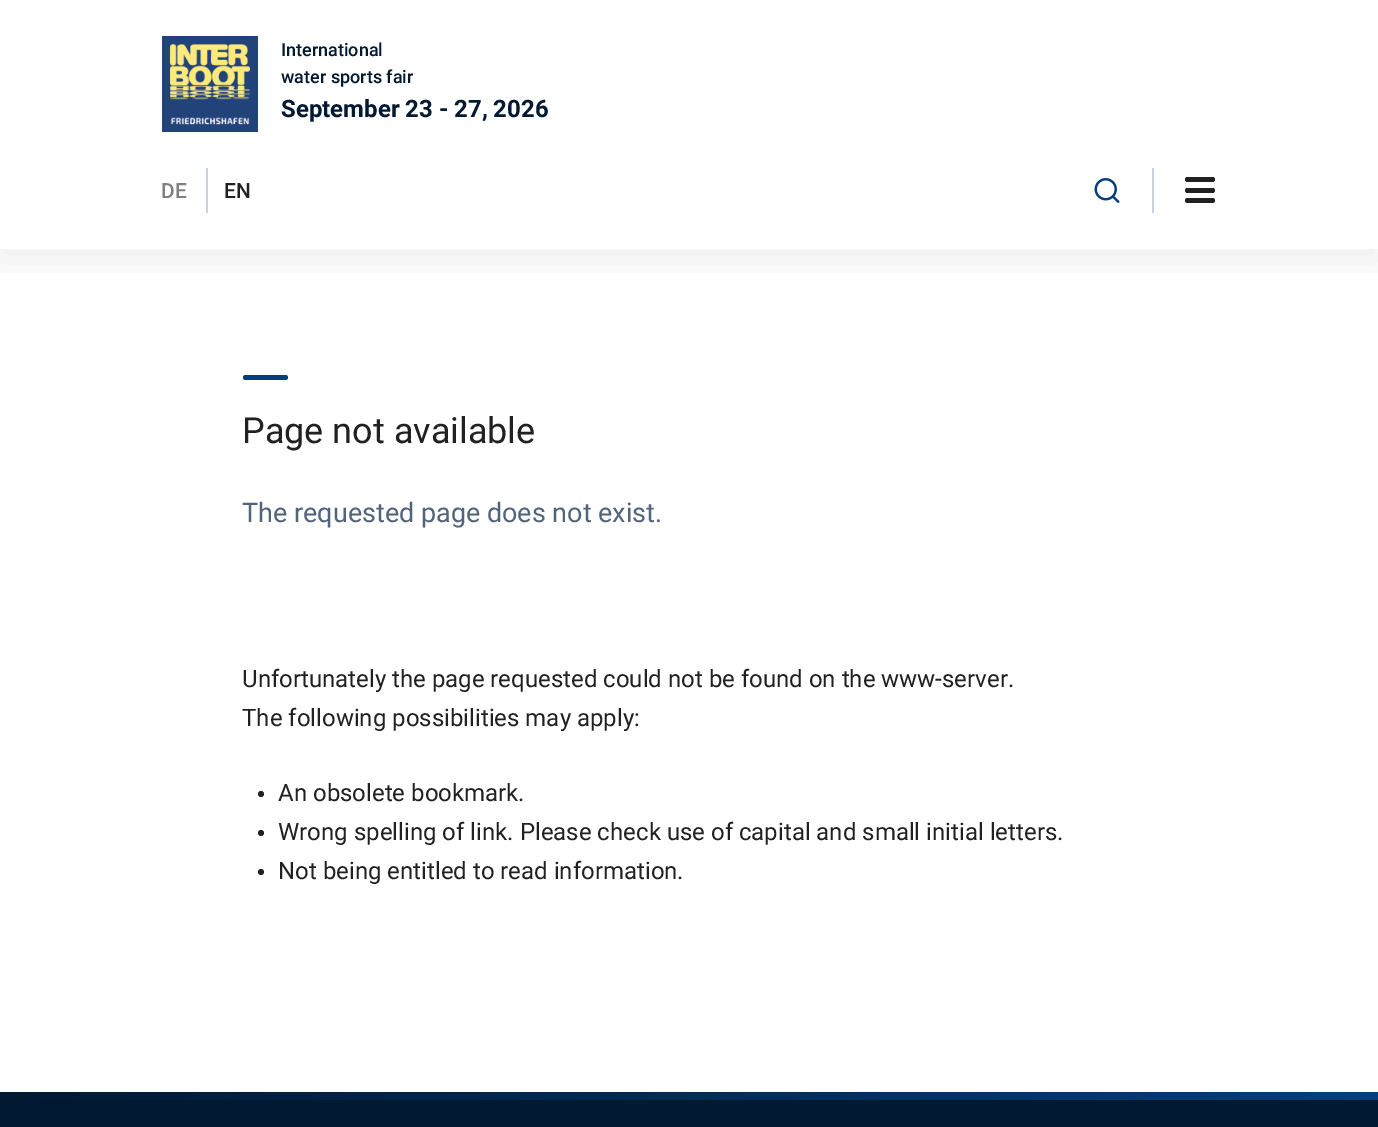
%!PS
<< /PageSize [1378 1127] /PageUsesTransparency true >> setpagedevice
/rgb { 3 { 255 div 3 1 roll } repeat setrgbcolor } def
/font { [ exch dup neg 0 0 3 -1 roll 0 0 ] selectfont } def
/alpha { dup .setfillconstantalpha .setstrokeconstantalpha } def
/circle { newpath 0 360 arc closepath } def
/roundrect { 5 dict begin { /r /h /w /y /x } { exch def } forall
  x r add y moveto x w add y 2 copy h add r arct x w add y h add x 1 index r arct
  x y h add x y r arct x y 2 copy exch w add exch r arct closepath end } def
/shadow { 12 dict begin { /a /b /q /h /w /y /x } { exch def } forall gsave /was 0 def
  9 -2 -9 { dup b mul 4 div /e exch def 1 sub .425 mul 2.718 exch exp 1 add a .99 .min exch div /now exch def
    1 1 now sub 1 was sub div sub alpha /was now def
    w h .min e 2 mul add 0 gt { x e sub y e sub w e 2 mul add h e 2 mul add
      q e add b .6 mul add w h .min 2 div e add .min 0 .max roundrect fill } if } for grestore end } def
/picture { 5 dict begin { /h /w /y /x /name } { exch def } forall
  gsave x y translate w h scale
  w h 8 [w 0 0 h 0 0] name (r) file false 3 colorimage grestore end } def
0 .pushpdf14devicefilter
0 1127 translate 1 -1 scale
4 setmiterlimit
255 255 255 rgb
0 0 1378 1127 rectfill
gsave
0 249 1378 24 rectclip
40 41 61 rgb
0 12 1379 249 0 18 0.08 shadow
grestore
(img/1.rgb) 162 36 96 96 picture
200 209 222 rgb
206 168 2 45 rectfill
(img/2.rgb) 1094 178 26 25 picture
1152 168 2 45 rectfill
33 33 33 rgb
1185 177 30 5 2.5 roundrect fill
1185 188 30 5 2.5 roundrect fill
1185 198 30 5 2.5 roundrect fill
4 63 125 rgb
243 375 45 5 2.5 roundrect fill
33 33 33 rgb
261 794 3 circle fill
261 833 3 circle fill
261 872 3 circle fill
2 25 50 rgb
0 1100 1378 27 rectfill
gsave 0 1092 moveto 1378 1092 lineto 1378 1100 lineto 0 1100 lineto closepath clip newpath
<< /ShadingType 2 /ColorSpace /DeviceRGB /Coords [0 1096 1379 1096] /Extend [true true] /Function << /FunctionType 2 /Domain [0 1] /C0 [0.008 0.098 0.196] /C1 [0.016 0.247 0.49] /N 1 >> >> shfill grestore
/Roboto-Medium 18 font
281 56 moveto (International) show
281 83 moveto (water sports fair) show
/Roboto-Bold 24 font
281 117 moveto (September 23 - 27, 2026) show
/Roboto-Medium 21 font
128 126 126 rgb
161 198 moveto (DE) show
33 33 33 rgb
224 198 moveto (EN) show
/Roboto-Regular 36 font
242 443 moveto (Page not available) show
/Roboto-Regular 27 font
82 100 124 rgb
242 522 moveto (The requested page does not exist.) show
/Roboto-Regular 24 font
33 33 33 rgb
[
  [(Unfortunately the page requested could not be found on the www-server.) 242 687]
  [(The following possibilities may apply:) 242 726]
  [(An obsolete bookmark.) 278 801]
  [(Wrong spelling of link. Please check use of capital and small initial letters.) 278 840]
  [(Not being entitled to read information.) 278 879]
] { aload pop moveto show } forall
.poppdf14devicefilter showpage
